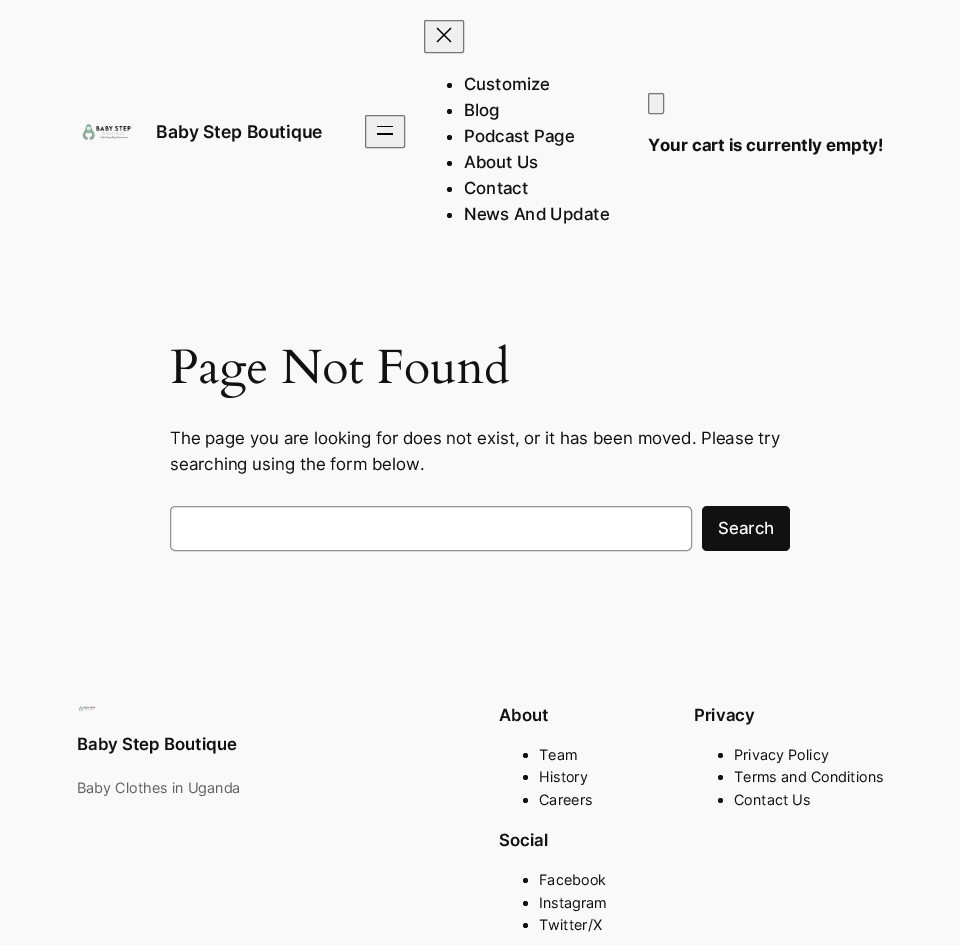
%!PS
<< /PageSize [960 945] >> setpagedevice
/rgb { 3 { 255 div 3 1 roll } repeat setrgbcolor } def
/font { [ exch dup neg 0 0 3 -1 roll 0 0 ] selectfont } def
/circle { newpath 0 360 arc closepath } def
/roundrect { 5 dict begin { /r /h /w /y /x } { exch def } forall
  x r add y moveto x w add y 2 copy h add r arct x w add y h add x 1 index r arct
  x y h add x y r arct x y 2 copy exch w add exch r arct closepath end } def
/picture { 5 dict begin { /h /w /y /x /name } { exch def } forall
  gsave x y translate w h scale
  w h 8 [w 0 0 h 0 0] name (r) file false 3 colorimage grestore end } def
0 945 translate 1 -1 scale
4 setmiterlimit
249 249 249 rgb
0 0 960 945 rectfill
(img/1.rgb) 82 123 49 18 picture
239 239 239 rgb
365.5 115.5 39 32 1.5 roundrect gsave fill grestore
118 118 118 rgb
stroke
0 0 0 rgb
377 126 16 1 rectfill
377 133 16 2 rectfill
239 239 239 rgb
424.5 20.5 39 32 1.5 roundrect gsave fill grestore
118 118 118 rgb
stroke
(img/2.rgb) 436 27 16 16 picture
17 17 17 rgb
449.5 85.5 2.5 circle fill
449.5 111.5 2.5 circle fill
449.5 137.5 2.5 circle fill
449.5 163.5 2.5 circle fill
449.5 189.5 2.5 circle fill
449.5 215.5 2.5 circle fill
239 239 239 rgb
648.5 93.5 15 20 1.5 roundrect gsave fill grestore
118 118 118 rgb
stroke
(img/3.rgb) 171 344 339 54 picture
255 255 255 rgb
170.5 506.5 521 44 4.5 roundrect gsave fill grestore
148 148 148 rgb
stroke
17 17 17 rgb
702 506 88 45 5 roundrect fill
(img/4.rgb) 79 706 16 6 picture
525.5 755.5 2.5 circle fill
525.5 777.5 2.5 circle fill
525.5 800.5 2.5 circle fill
720.5 755.5 2.5 circle fill
720.5 777.5 2.5 circle fill
720.5 800.5 2.5 circle fill
525.5 880.5 2.5 circle fill
525.5 903.5 2.5 circle fill
525.5 925.5 2.5 circle fill
/Inter-SemiBold 17.5 font
156 138 moveto (Baby Step Boutique) show
/Inter-Medium 16.8 font
[
  [(Customize) 464 90]
  [(Blog) 464 116]
  [(Podcast Page) 464 142]
  [(About Us) 464 168]
  [(Contact) 464 194]
  [(News And Update) 464 220]
] { aload pop moveto show } forall
/Inter-Bold 16.8 font
648 151 moveto (Your cart is currently empty!) show
/Inter-Regular 16.8 font
170 444 moveto (The page you are looking for does not exist, or it has been moved. Please try) show
170 470 moveto (searching using the form below.) show
/Inter-Medium 16.8 font
249 249 249 rgb
718 534 moveto (Search) show
/Inter-SemiBold 16.8 font
17 17 17 rgb
77 750 moveto (Baby Step Boutique) show
/Inter-Regular 14.4 font
99 99 99 rgb
77 793 moveto (Baby Clothes in Uganda) show
/Inter-SemiBold 16.8 font
17 17 17 rgb
499 721 moveto (About) show
/Inter-Regular 14.4 font
[
  [(Team) 539 760]
  [(History) 539 782]
  [(Careers) 539 805]
] { aload pop moveto show } forall
/Inter-SemiBold 16.8 font
694 721 moveto (Privacy) show
/Inter-Regular 14.4 font
[
  [(Privacy Policy) 734 760]
  [(Terms and Conditions) 734 782]
  [(Contact Us) 734 805]
] { aload pop moveto show } forall
/Inter-SemiBold 16.8 font
499 846 moveto (Social) show
/Inter-Regular 14.4 font
[
  [(Facebook) 539 885]
  [(Instagram) 539 908]
  [(Twitter/X) 539 930]
] { aload pop moveto show } forall
showpage
